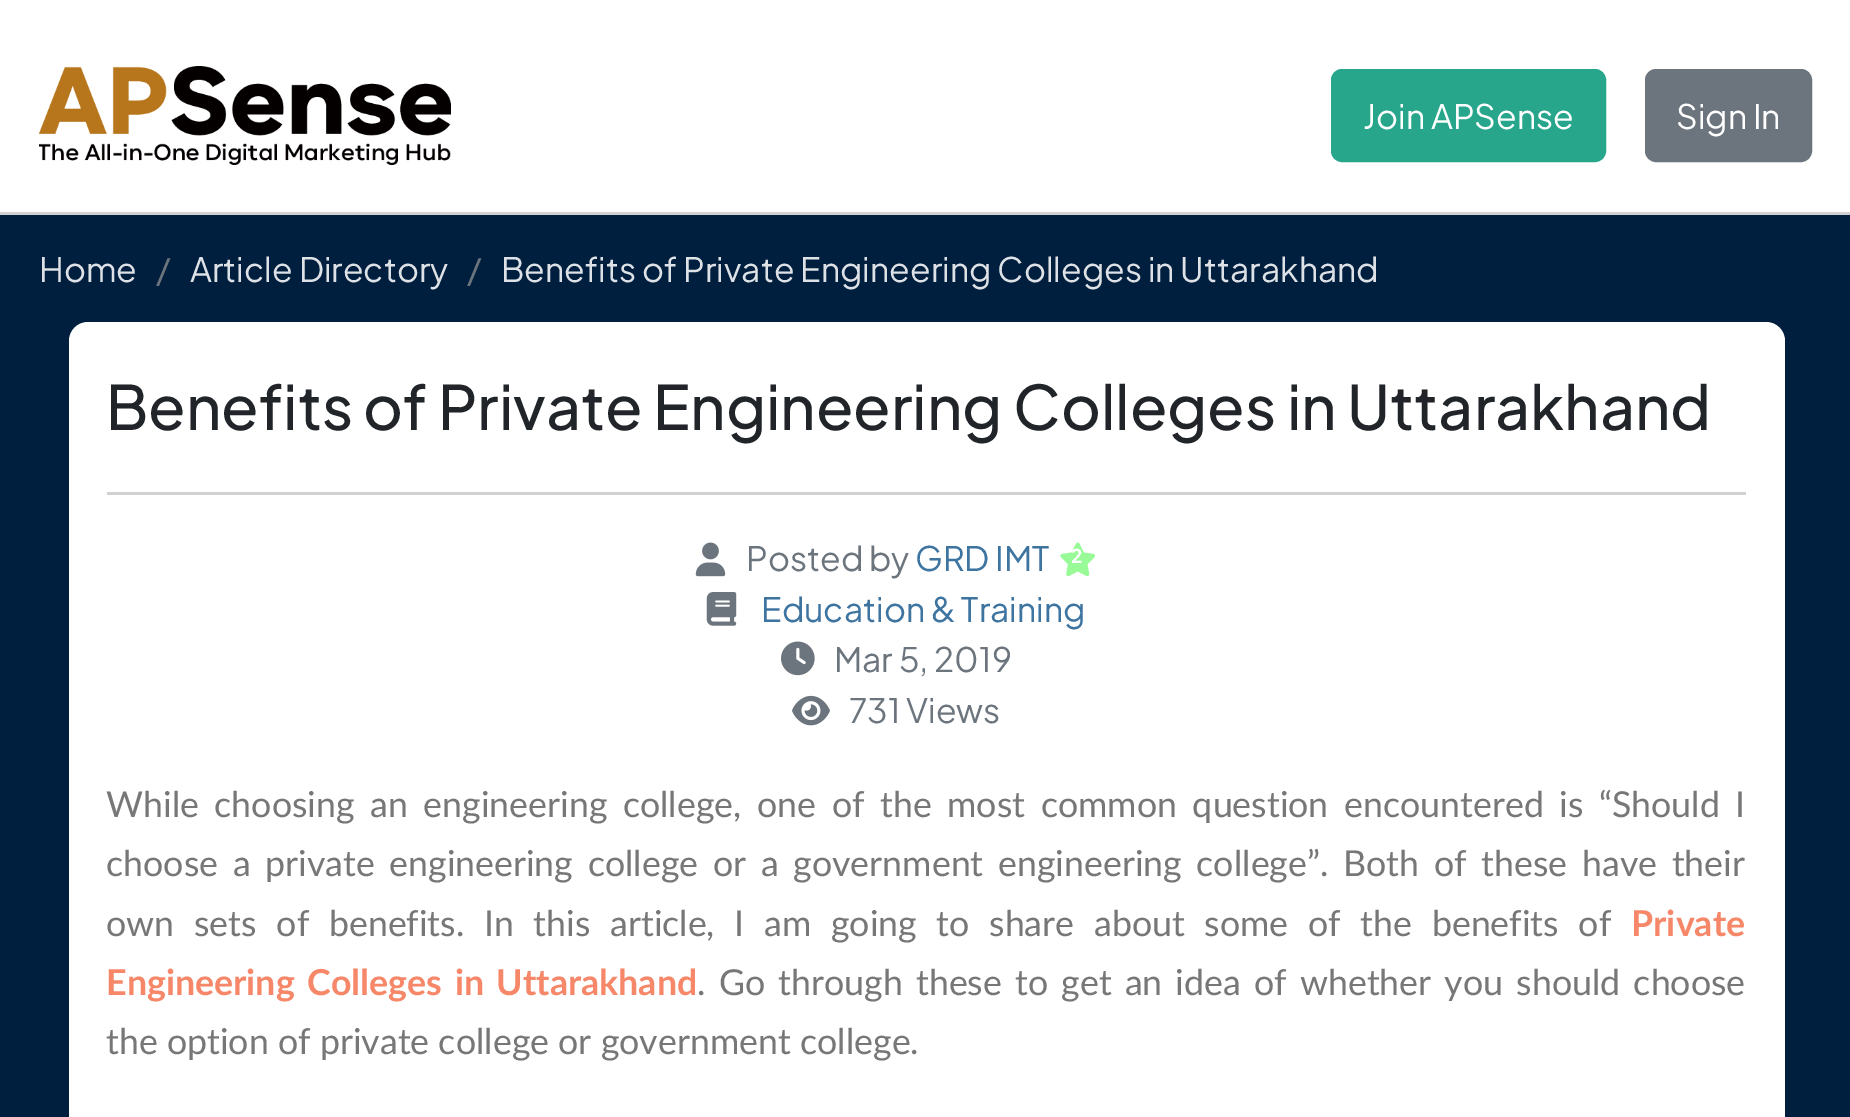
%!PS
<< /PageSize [1850 1117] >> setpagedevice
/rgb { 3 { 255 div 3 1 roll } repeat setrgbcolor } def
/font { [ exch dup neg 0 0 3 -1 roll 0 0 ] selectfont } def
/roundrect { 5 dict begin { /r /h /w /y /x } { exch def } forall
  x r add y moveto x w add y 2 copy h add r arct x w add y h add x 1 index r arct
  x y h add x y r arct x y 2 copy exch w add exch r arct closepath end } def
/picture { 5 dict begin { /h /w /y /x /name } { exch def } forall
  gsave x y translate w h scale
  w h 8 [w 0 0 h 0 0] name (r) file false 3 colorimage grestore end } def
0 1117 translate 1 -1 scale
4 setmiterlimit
0 31 63 rgb
0 0 1850 1117 rectfill
255 255 255 rgb
0 0 1850 212 rectfill
209 209 209 rgb
0 212 1850 3 rectfill
(img/1.rgb) 39 66 412 99 picture
39 166 140 rgb
1332.5 70.5 272 90 9.5 roundrect gsave fill grestore
3 setlinewidth
stroke
108 117 125 rgb
1646.5 70.5 164 90 9.5 roundrect gsave fill grestore
stroke
255 255 255 rgb
69 322 1716 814 19 roundrect fill
209 209 209 rgb
107 492 1639 3 rectfill
(img/2.rgb) 695 542 31 35 picture
(img/3.rgb) 1060 542 35 35 picture
(img/4.rgb) 706 592 31 34 picture
(img/5.rgb) 781 641 34 35 picture
(img/6.rgb) 792 695 38 31 picture
/PlusJakartaSans-Regular 33.7 font
255 255 255 rgb
1363 129 moveto (Join APSense) show
1676 129 moveto (Sign In) show
222 226 230 rgb
39 282 moveto (Home) show
108 117 125 rgb
156 282 moveto (/) show
222 226 230 rgb
190 282 moveto (Article Directory) show
108 117 125 rgb
467 282 moveto (/) show
222 226 230 rgb
501 282 moveto (Benefits of Private Engineering Colleges in Uttarakhand) show
/PlusJakartaSans-Medium 61.15 font
33 37 41 rgb
106 430 moveto -0.25 0 32 (Benefits of Private Engineering Colleges in Uttarakhand) widthshow
/PlusJakartaSans-Regular 33.7 font
108 117 125 rgb
746 571 moveto (Posted by) show
62 116 160 rgb
915 571 moveto (GRD IMT) show
/PlusJakartaSans-Bold 19 font
255 255 255 rgb
1071 563 moveto (2) show
/PlusJakartaSans-Regular 33.7 font
62 116 160 rgb
761 622 moveto (Education & Training) show
108 117 125 rgb
834 672 moveto (Mar 5, 2019) show
849 723 moveto (731 Views) show
/Lato-Regular 35.75 font
119 119 119 rgb
106 817 moveto 6.4 0 32 (While choosing an engineering college, one of the most common question encountered is “Should I) widthshow
106 876 moveto 5.5 0 32 (choose a private engineering college or a government engineering college”. Both of these have their) widthshow
106 936 moveto 10.5 0 32 (own sets of benefits. In this article, I am going to share about some of the benefits of) widthshow
/Lato-Bold 35.75 font
247 135 105 rgb
1631 936 moveto (Private) show
106 995 moveto 4 0 32 (Engineering Colleges in Uttarakhand) widthshow
/Lato-Regular 35.75 font
119 119 119 rgb
697 995 moveto 4 0 32 (. Go through these to get an idea of whether you should choose) widthshow
106 1054 moveto (the option of private college or government college.) show
showpage
